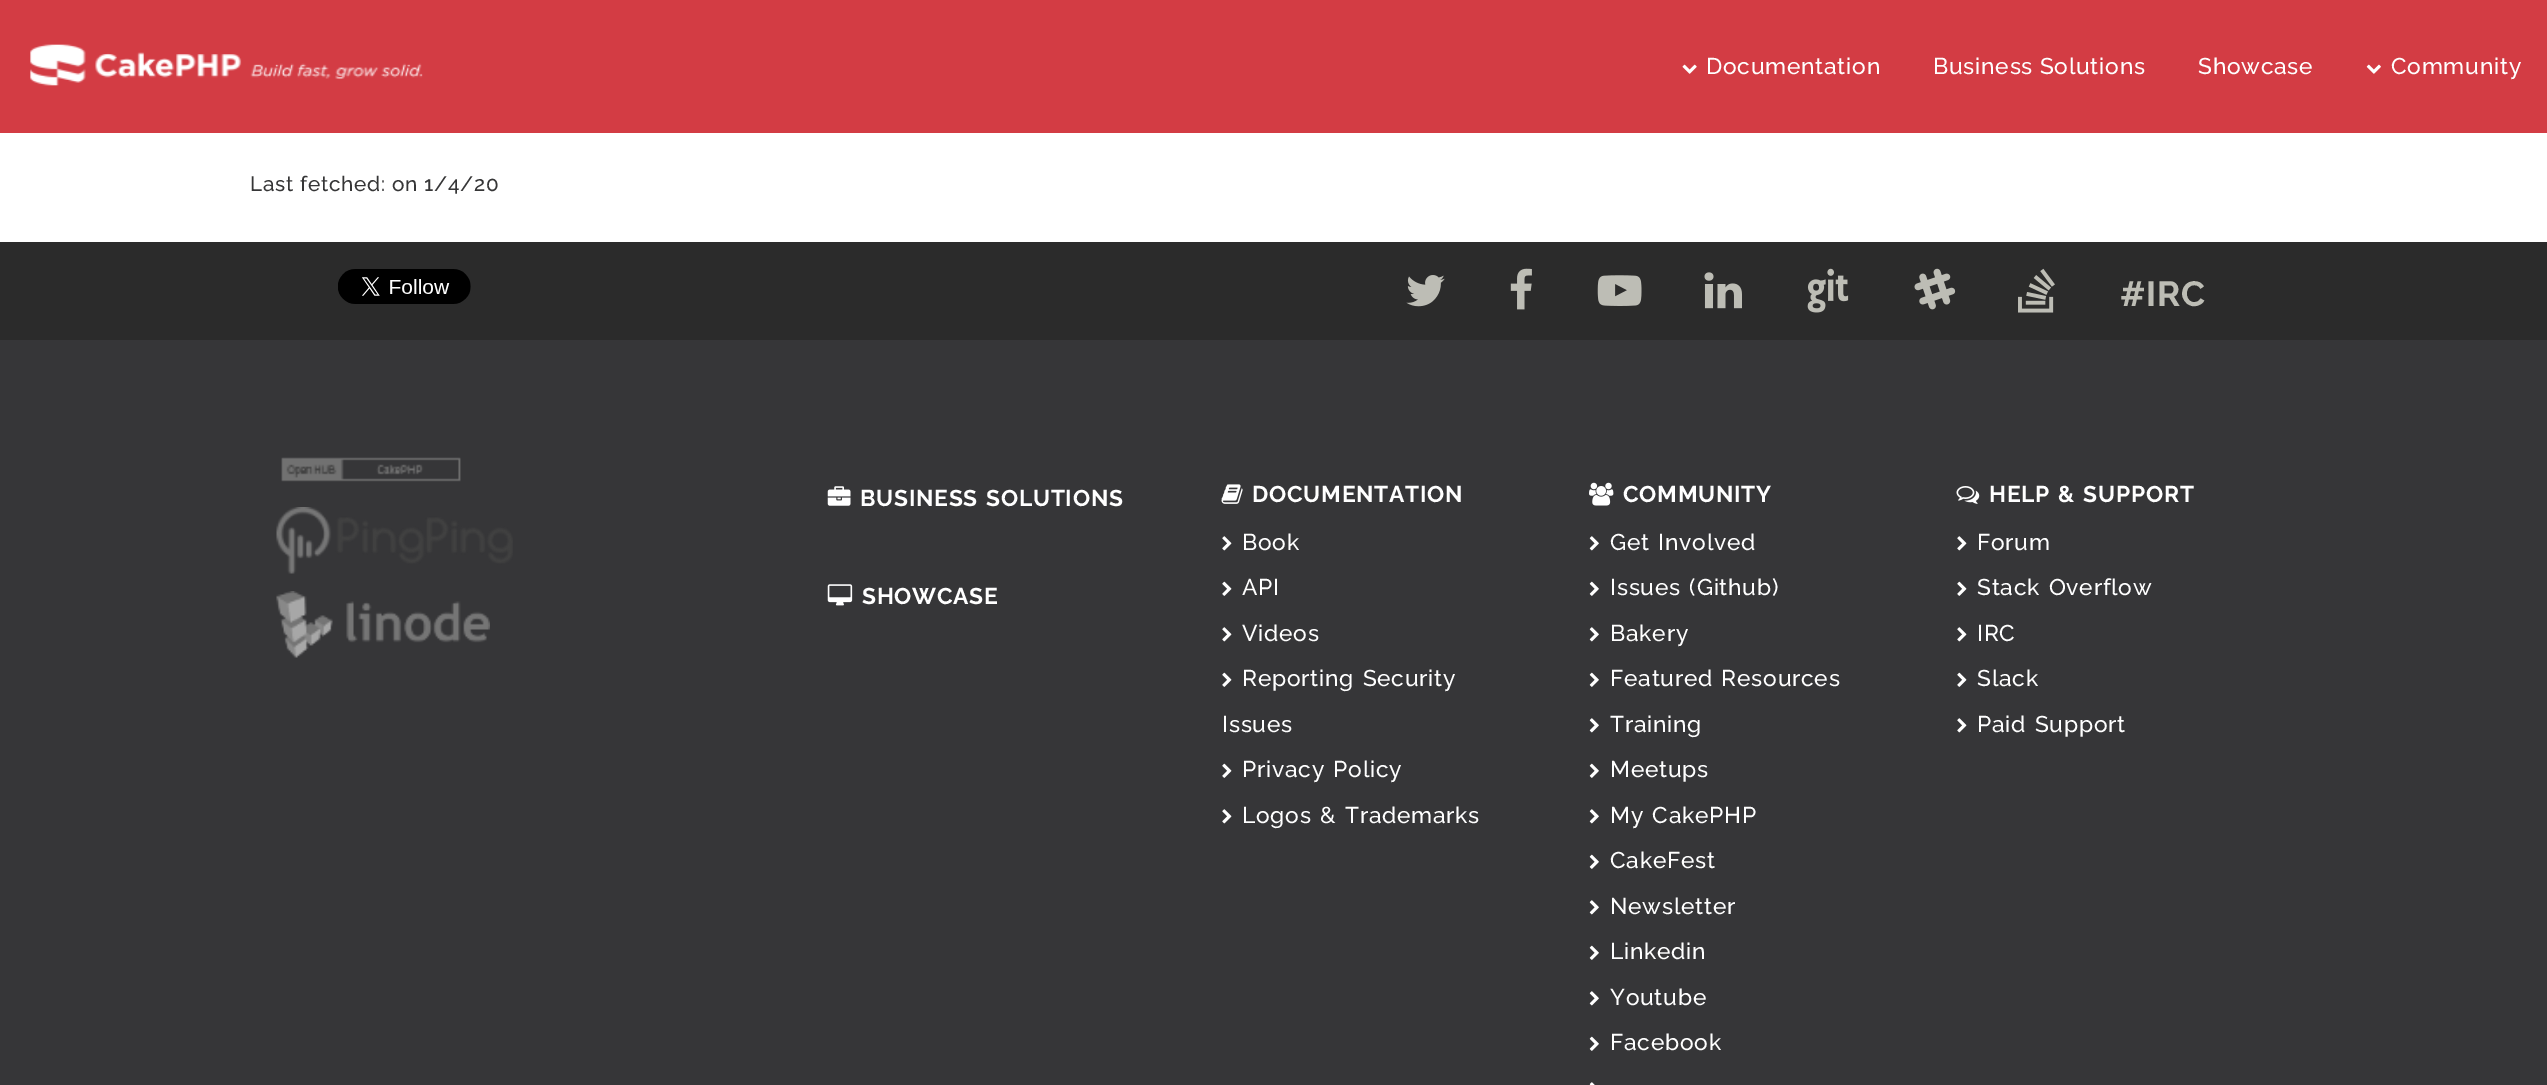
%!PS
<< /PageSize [2547 1085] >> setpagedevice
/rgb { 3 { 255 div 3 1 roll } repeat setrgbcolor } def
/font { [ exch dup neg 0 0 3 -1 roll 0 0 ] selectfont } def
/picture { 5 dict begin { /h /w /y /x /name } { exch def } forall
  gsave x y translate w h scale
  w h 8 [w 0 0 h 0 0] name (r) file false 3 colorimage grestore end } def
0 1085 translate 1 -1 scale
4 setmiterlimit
255 255 255 rgb
0 0 2547 1085 rectfill
211 60 68 rgb
0 0 2547 133 rectfill
(img/1.rgb) 30 44 393 42 picture
(img/2.rgb) 1682 64 15 10 picture
(img/3.rgb) 2366 64 15 10 picture
43 43 43 rgb
0 242 2547 98 rectfill
(img/4.rgb) 338 269 133 35 picture
(img/5.rgb) 1406 275 39 32 picture
(img/6.rgb) 1510 268 22 42 picture
(img/7.rgb) 1597 275 45 31 picture
(img/8.rgb) 1704 272 38 37 picture
(img/9.rgb) 1807 268 42 45 picture
(img/10.rgb) 1914 268 42 42 picture
(img/11.rgb) 2018 268 37 45 picture
54 54 56 rgb
0 340 2547 745 rectfill
(img/12.rgb) 281 457 180 25 picture
(img/13.rgb) 276 507 237 67 picture
(img/14.rgb) 276 591 214 67 picture
(img/15.rgb) 827 486 24 20 picture
(img/16.rgb) 827 584 26 22 picture
(img/17.rgb) 1221 484 22 20 picture
(img/18.rgb) 1222 536 10 15 picture
(img/19.rgb) 1222 581 10 15 picture
(img/18.rgb) 1222 627 10 15 picture
(img/19.rgb) 1222 672 10 15 picture
(img/19.rgb) 1222 763 10 15 picture
(img/18.rgb) 1222 809 10 15 picture
(img/20.rgb) 1589 482 25 24 picture
(img/21.rgb) 1589 536 10 15 picture
(img/22.rgb) 1589 581 10 15 picture
(img/21.rgb) 1589 627 10 15 picture
(img/22.rgb) 1589 672 10 15 picture
(img/21.rgb) 1589 718 10 15 picture
(img/22.rgb) 1589 763 10 15 picture
(img/21.rgb) 1589 809 10 15 picture
(img/22.rgb) 1589 854 10 15 picture
(img/21.rgb) 1589 900 10 15 picture
(img/22.rgb) 1589 945 10 15 picture
(img/21.rgb) 1589 991 10 15 picture
(img/22.rgb) 1589 1036 10 15 picture
(img/23.rgb) 1589 1082 6 3 picture
(img/24.rgb) 1956 486 24 18 picture
(img/18.rgb) 1957 536 10 15 picture
(img/25.rgb) 1957 581 10 15 picture
(img/18.rgb) 1957 627 10 15 picture
(img/25.rgb) 1957 672 10 15 picture
(img/18.rgb) 1957 718 10 15 picture
/Raleway-Medium 22.75 font
255 255 255 rgb
1706 74 moveto 0.75 0 (Documentation) ashow
1933 74 moveto 0.75 0 (Business Solutions) ashow
2198 74 moveto 0.75 0 (Showcase) ashow
2391 74 moveto 0.75 0 (Community) ashow
/Raleway-Medium 20.75 font
54 54 55 rgb
250 191 moveto 0.75 0 (Last fetched: on 1/4/20) ashow
/Raleway-Bold 35 font
189 189 181 rgb
2120 306 moveto 0.75 0 (#IRC) ashow
/Raleway-Bold 22.75 font
255 255 255 rgb
860 506 moveto 2 0 32 0.75 0 (BUSINESS SOLUTIONS) awidthshow
862 604 moveto 0.75 0 (SHOWCASE) ashow
1252 502 moveto 0.75 0 (DOCUMENTATION) ashow
/Raleway-Medium 22.75 font
1242 550 moveto 0.75 0 (Book) ashow
1242 595 moveto 0.75 0 (API) ashow
1242 641 moveto 0.75 0 (Videos) ashow
1242 686 moveto 2 0 32 0.75 0 (Reporting Security) awidthshow
1222 732 moveto 0.75 0 (Issues) ashow
1242 777 moveto 2 0 32 0.75 0 (Privacy Policy) awidthshow
1242 823 moveto 2 0 32 0.75 0 (Logos & Trademarks) awidthshow
/Raleway-Bold 22.75 font
1623 502 moveto 0.75 0 (COMMUNITY) ashow
/Raleway-Medium 22.75 font
1610 550 moveto 2 0 32 0.75 0 (Get Involved) awidthshow
1610 595 moveto 2 0 32 0.75 0 (Issues \(Github\)) awidthshow
1610 641 moveto 0.75 0 (Bakery) ashow
1610 686 moveto 2 0 32 0.75 0 (Featured Resources) awidthshow
1610 732 moveto 0.75 0 (Training) ashow
1610 777 moveto 0.75 0 (Meetups) ashow
1610 823 moveto 2 0 32 0.75 0 (My CakePHP) awidthshow
1610 868 moveto 0.75 0 (CakeFest) ashow
1610 914 moveto 0.75 0 (Newsletter) ashow
1610 959 moveto 0.75 0 (Linkedin) ashow
1610 1005 moveto 0.75 0 (Youtube) ashow
1610 1050 moveto 0.75 0 (Facebook) ashow
/Raleway-Bold 22.75 font
1989 502 moveto 2 0 32 0.75 0 (HELP & SUPPORT) awidthshow
/Raleway-Medium 22.75 font
1977 550 moveto 0.75 0 (Forum) ashow
1977 595 moveto 2 0 32 0.75 0 (Stack Overflow) awidthshow
1977 641 moveto 0.75 0 (IRC) ashow
1977 686 moveto 0.75 0 (Slack) ashow
1977 732 moveto 2 0 32 0.75 0 (Paid Support) awidthshow
showpage
